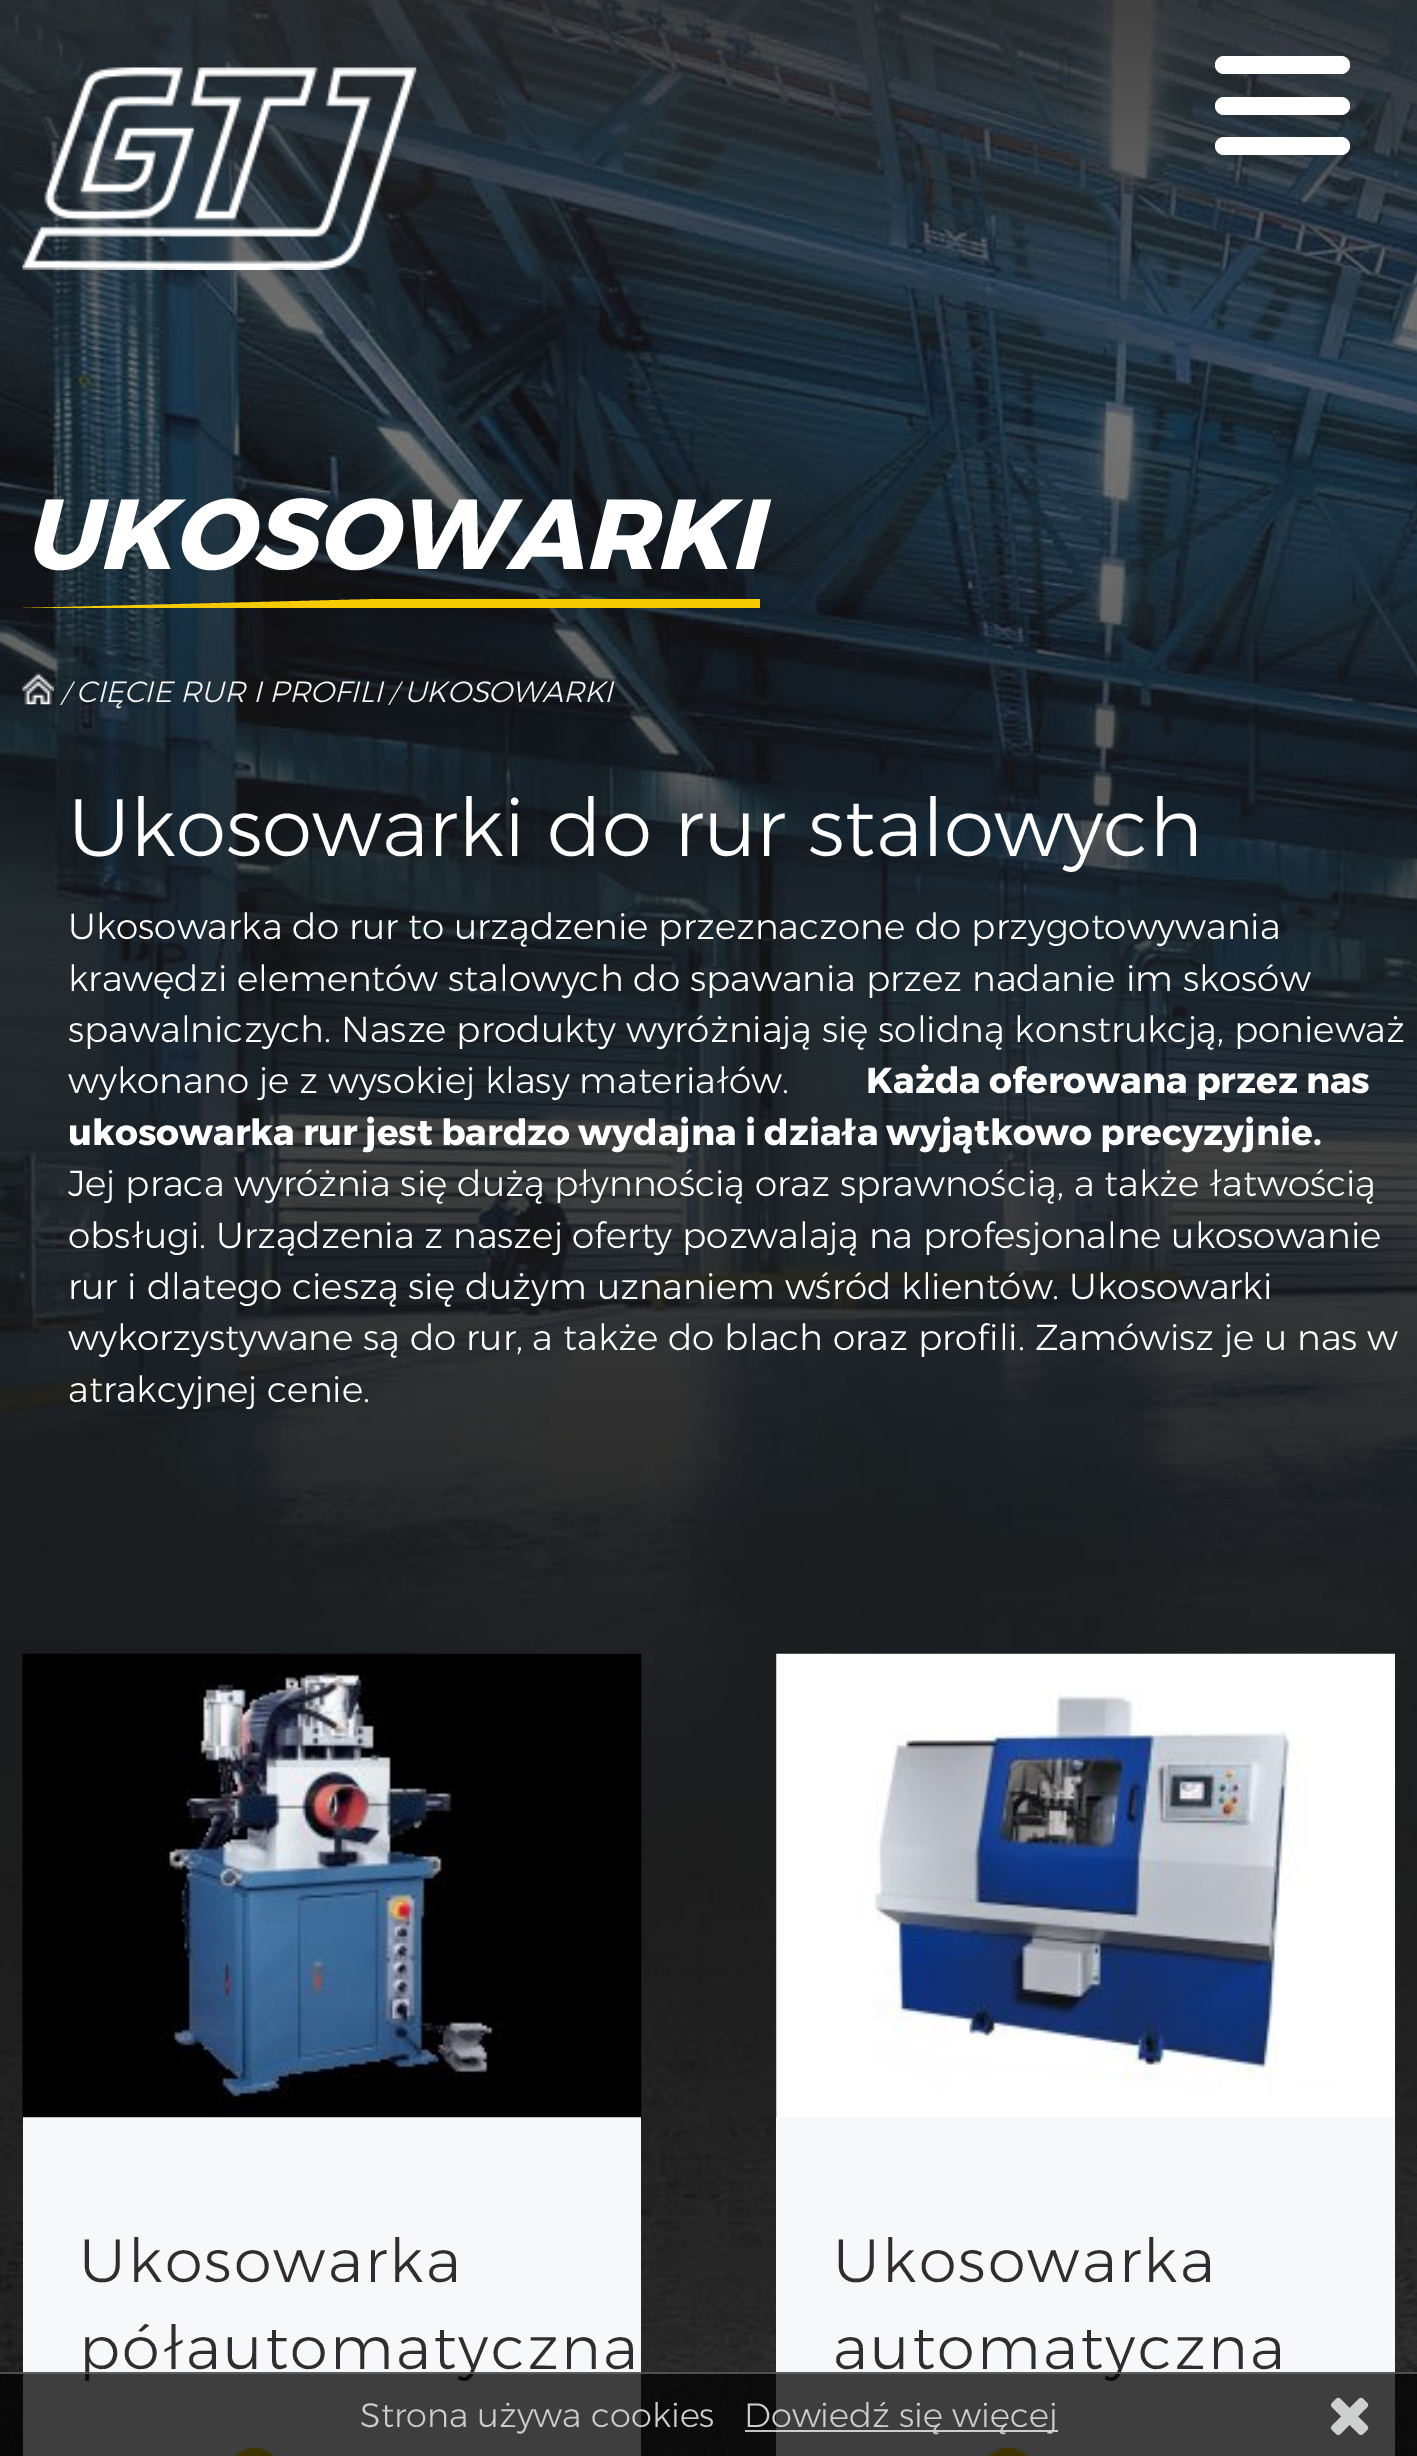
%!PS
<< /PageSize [1417 2456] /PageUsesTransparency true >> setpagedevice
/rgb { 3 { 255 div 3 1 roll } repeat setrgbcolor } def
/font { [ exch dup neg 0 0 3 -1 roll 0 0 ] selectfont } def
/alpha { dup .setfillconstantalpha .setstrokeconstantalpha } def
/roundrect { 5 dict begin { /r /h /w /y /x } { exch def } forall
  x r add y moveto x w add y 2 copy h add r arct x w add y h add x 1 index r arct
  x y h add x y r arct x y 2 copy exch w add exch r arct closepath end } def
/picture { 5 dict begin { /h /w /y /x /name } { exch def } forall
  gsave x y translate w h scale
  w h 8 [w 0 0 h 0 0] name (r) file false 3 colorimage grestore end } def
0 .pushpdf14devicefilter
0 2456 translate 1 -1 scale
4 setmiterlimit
255 255 255 rgb
0 0 1417 2456 rectfill
(img/1.rgb) 0 0 1417 2456 picture
(img/2.rgb) 22 67 395 203 picture
1215 56 135 18 9 roundrect fill
1215 97 135 18 9 roundrect fill
1215 137 135 18 9 roundrect fill
245 202 1 rgb
760 608 moveto 760 599 lineto 379 599 lineto 23 608 lineto closepath fill
(img/3.rgb) 22 672 32 33 picture
247 248 249 rgb
23 2117 618 339 rectfill
(img/4.rgb) 22 1653 620 465 picture
(img/5.rgb) 233 2448 43 8 picture
(img/6.rgb) 776 1653 619 464 picture
776 2117 619 339 rectfill
(img/7.rgb) 987 2448 42 8 picture
/Montserrat-BoldItalic 99.25 font
255 255 255 rgb
23 569 moveto (UKOSOWARKI) show
/Montserrat-LightItalic 25 font
245 245 245 rgb
61 702 moveto (/) show
/Montserrat-LightItalic 29.25 font
76 702 moveto (CIĘCIE RUR I PROFILI) show
/Montserrat-LightItalic 25 font
389 702 moveto (/) show
/Montserrat-LightItalic 29.25 font
404 702 moveto (UKOSOWARKI) show
/Montserrat-Light 81 font
255 255 255 rgb
68 856 moveto (Ukosowarki do rur stalowych) show
/Montserrat-Light 36 font
[
  [(Ukosowarka do rur to urządzenie przeznaczone do przygotowywania) 68 939]
  [(krawędzi elementów stalowych do spawania przez nadanie im skosów) 68 991]
  [(spawalniczych. Nasze produkty wyróżniają się solidną konstrukcją, ponieważ) 68 1042]
  [(wykonano je z wysokiej klasy materiałów.) 68 1093]
] { aload pop moveto show } forall
/Montserrat-Bold 36 font
866 1093 moveto (Każda oferowana przez nas) show
68 1145 moveto (ukosowarka rur jest bardzo wydajna i działa wyjątkowo precyzyjnie.) show
/Montserrat-Light 36 font
[
  [(Jej praca wyróżnia się dużą płynnością oraz sprawnością, a także łatwością) 68 1196]
  [(obsługi. Urządzenia z naszej oferty pozwalają na profesjonalne ukosowanie) 68 1248]
  [(rur i dlatego cieszą się dużym uznaniem wśród klientów. Ukosowarki) 68 1299]
  [(wykorzystywane są do rur, a także do blach oraz profili. Zamówisz je u nas w) 68 1350]
  [(atrakcyjnej cenie.) 68 1402]
] { aload pop moveto show } forall
/Montserrat-Light 60.75 font
49 44 45 rgb
79 2282 moveto 2.25 0 (Ukosowarka) ashow
79 2369 moveto 2.25 0 (półautomatyczna) ashow
833 2282 moveto 2.25 0 (Ukosowarka) ashow
833 2369 moveto 2.25 0 (automatyczna) ashow
0.75 alpha
0 0 0 rgb
0 2372 1417 84 rectfill
102 102 102 rgb
0 2372 1417 2 rectfill
/Montserrat-Light 33.75 font
1 alpha
204 204 204 rgb
360 2427 moveto (Strona używa cookies) show
0.75 alpha
255 255 255 rgb
745 2430 313 2 rectfill
1 alpha
204 204 204 rgb
744 2427 moveto (Dowiedź się więcej) show
(img/8.rgb) 1331 2397 38 38 picture
.poppdf14devicefilter showpage
